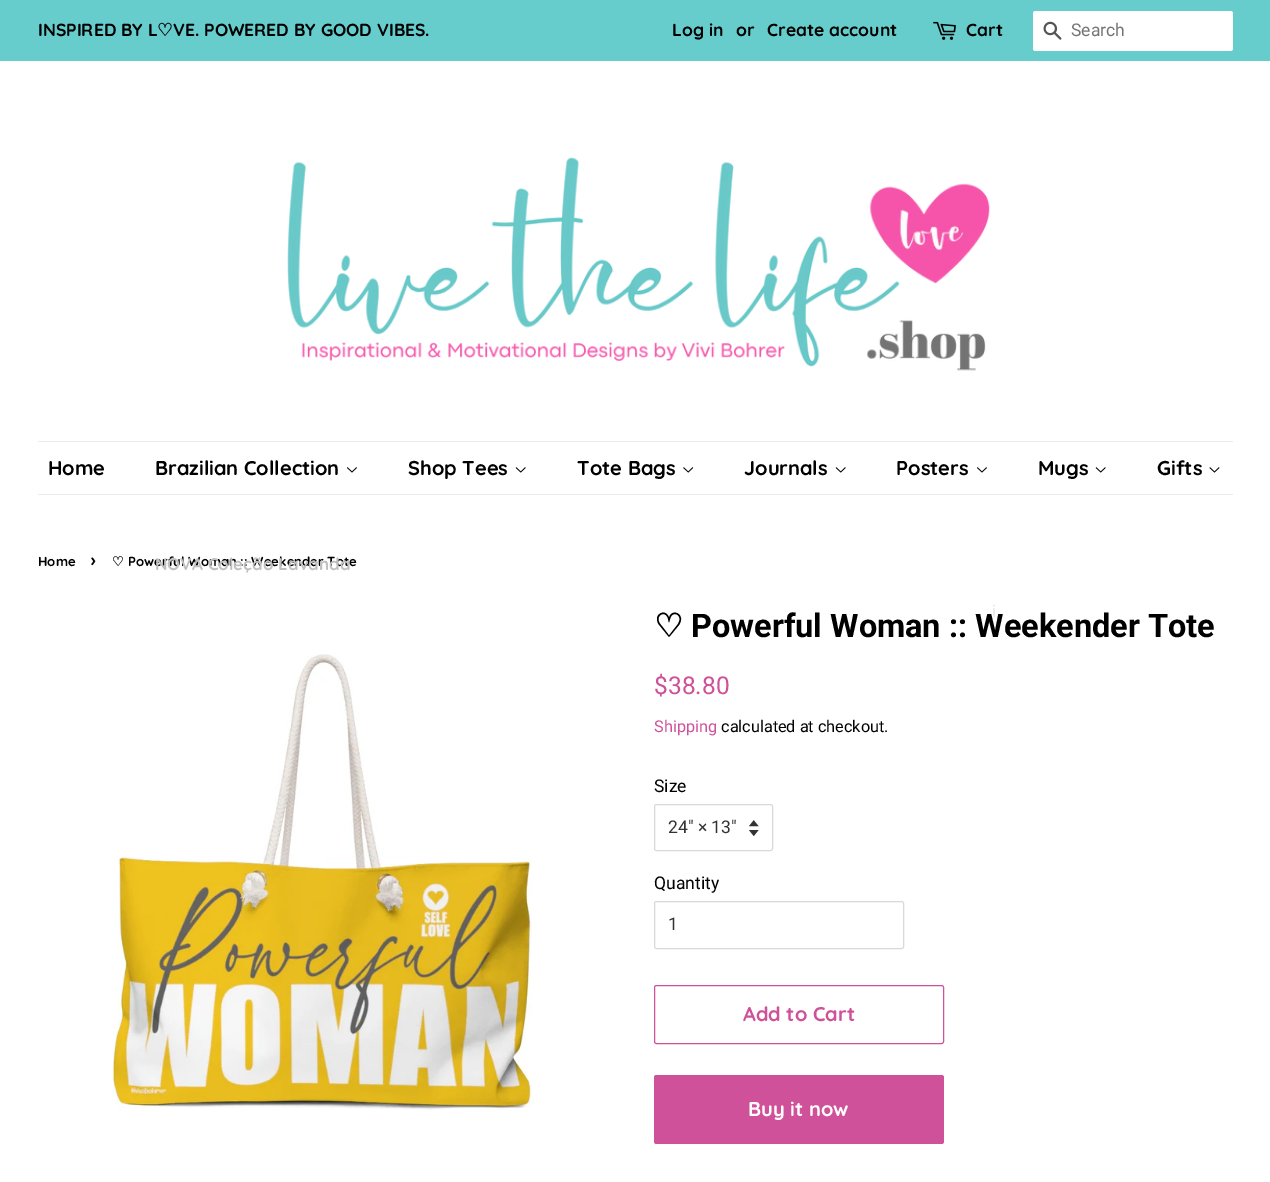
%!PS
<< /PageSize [1270 1182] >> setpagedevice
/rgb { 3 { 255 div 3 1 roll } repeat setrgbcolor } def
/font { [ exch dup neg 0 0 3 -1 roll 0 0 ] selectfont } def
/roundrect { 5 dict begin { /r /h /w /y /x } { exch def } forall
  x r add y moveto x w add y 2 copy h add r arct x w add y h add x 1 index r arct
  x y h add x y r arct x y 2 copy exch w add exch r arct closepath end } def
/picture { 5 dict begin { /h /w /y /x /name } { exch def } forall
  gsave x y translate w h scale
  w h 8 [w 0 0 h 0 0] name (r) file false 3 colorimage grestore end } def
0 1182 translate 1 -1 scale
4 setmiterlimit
255 255 255 rgb
0 0 1270 1182 rectfill
102 204 204 rgb
0 0 1270 61 rectfill
(img/1.rgb) 933 21 23 19 picture
255 255 255 rgb
1033 11 200 40 2.5 roundrect fill
(img/2.rgb) 1043 21 19 19 picture
(img/3.rgb) 287 157 703 214 picture
235 235 235 rgb
38 441 1195 1 rectfill
38 494 1195 1 rectfill
(img/4.rgb) 347 467 10 6 picture
(img/5.rgb) 515 467 11 6 picture
(img/6.rgb) 683 467 11 6 picture
(img/5.rgb) 835 467 11 6 picture
(img/4.rgb) 977 467 10 6 picture
(img/7.rgb) 1209 467 11 6 picture
(img/5.rgb) 1095 467 11 6 picture
(img/8.rgb) 112 654 420 456 picture
(img/9.rgb) 749 820 10 16 picture
217 217 217 rgb
654.5 804.5 118 46 2 roundrect stroke
654.5 901.5 249 47 2 roundrect stroke
206 81 153 rgb
654.5 985.5 289 58 2 roundrect stroke
654 1075 290 69 2.5 roundrect fill
/Quicksand-Bold 17.5 font
0 0 0 rgb
38 36 moveto (INSPIRED BY L) show
/DejaVuSans-Bold 17.5 font
157 36 moveto (♡) show
/Quicksand-Bold 17.5 font
[
  [(VE. POWERED BY GOOD VIBES.) 173 36]
  [(Log in) 672 36]
  [(or) 736 36]
  [(Create account) 767 36]
  [(Cart) 966 36]
] { aload pop moveto show } forall
/Roboto-Regular 17.5 font
117 117 117 rgb
1071 36 moveto (Search) show
/Quicksand-Bold 20 font
0 0 0 rgb
[
  [(Home) 48 475]
  [(Brazilian Collection) 155 475]
  [(Shop Tees) 408 475]
  [(Tote Bags) 577 475]
  [(Journals) 744 475]
  [(Posters) 896 475]
  [(Gifts) 1157 475]
] { aload pop moveto show } forall
/Quicksand-Bold 17 font
236 236 236 rgb
992 617 moveto (i) show
/Quicksand-Bold 20 font
0 0 0 rgb
1038 475 moveto (Mugs) show
/Quicksand-Bold 13.1 font
38 566 moveto (Home) show
/Quicksand-Bold 18 font
91 566 moveto (›) show
/DejaVuSans-Bold 13.1 font
112 566 moveto (♡) show
/Quicksand-Bold 13.1 font
128 566 moveto (Powerful Woman :: Weekender Tote) show
/Quicksand-Bold 17 font
192 192 192 rgb
155 570 moveto (NOVA Coleção Lavanda) show
/DejaVuSans-Bold 32.5 font
0 0 0 rgb
654 637 moveto (♡) show
/Roboto-Bold 32.5 font
691 637 moveto (Powerful Woman :: Weekender Tote) show
/Roboto-Regular 24.5 font
206 81 153 rgb
654 694 moveto ($38.80) show
/Roboto-Regular 16.25 font
654 732 moveto (Shipping) show
0 0 0 rgb
721 732 moveto (calculated at checkout.) show
/Roboto-Regular 17.5 font
654 792 moveto (Size) show
51 51 51 rgb
668 833 moveto (24" × 13") show
0 0 0 rgb
654 889 moveto (Quantity) show
51 51 51 rgb
668 930 moveto (1) show
/Quicksand-Bold 20 font
206 81 153 rgb
743 1021 moveto (Add to Cart) show
255 255 255 rgb
748 1116 moveto (Buy it now) show
showpage
